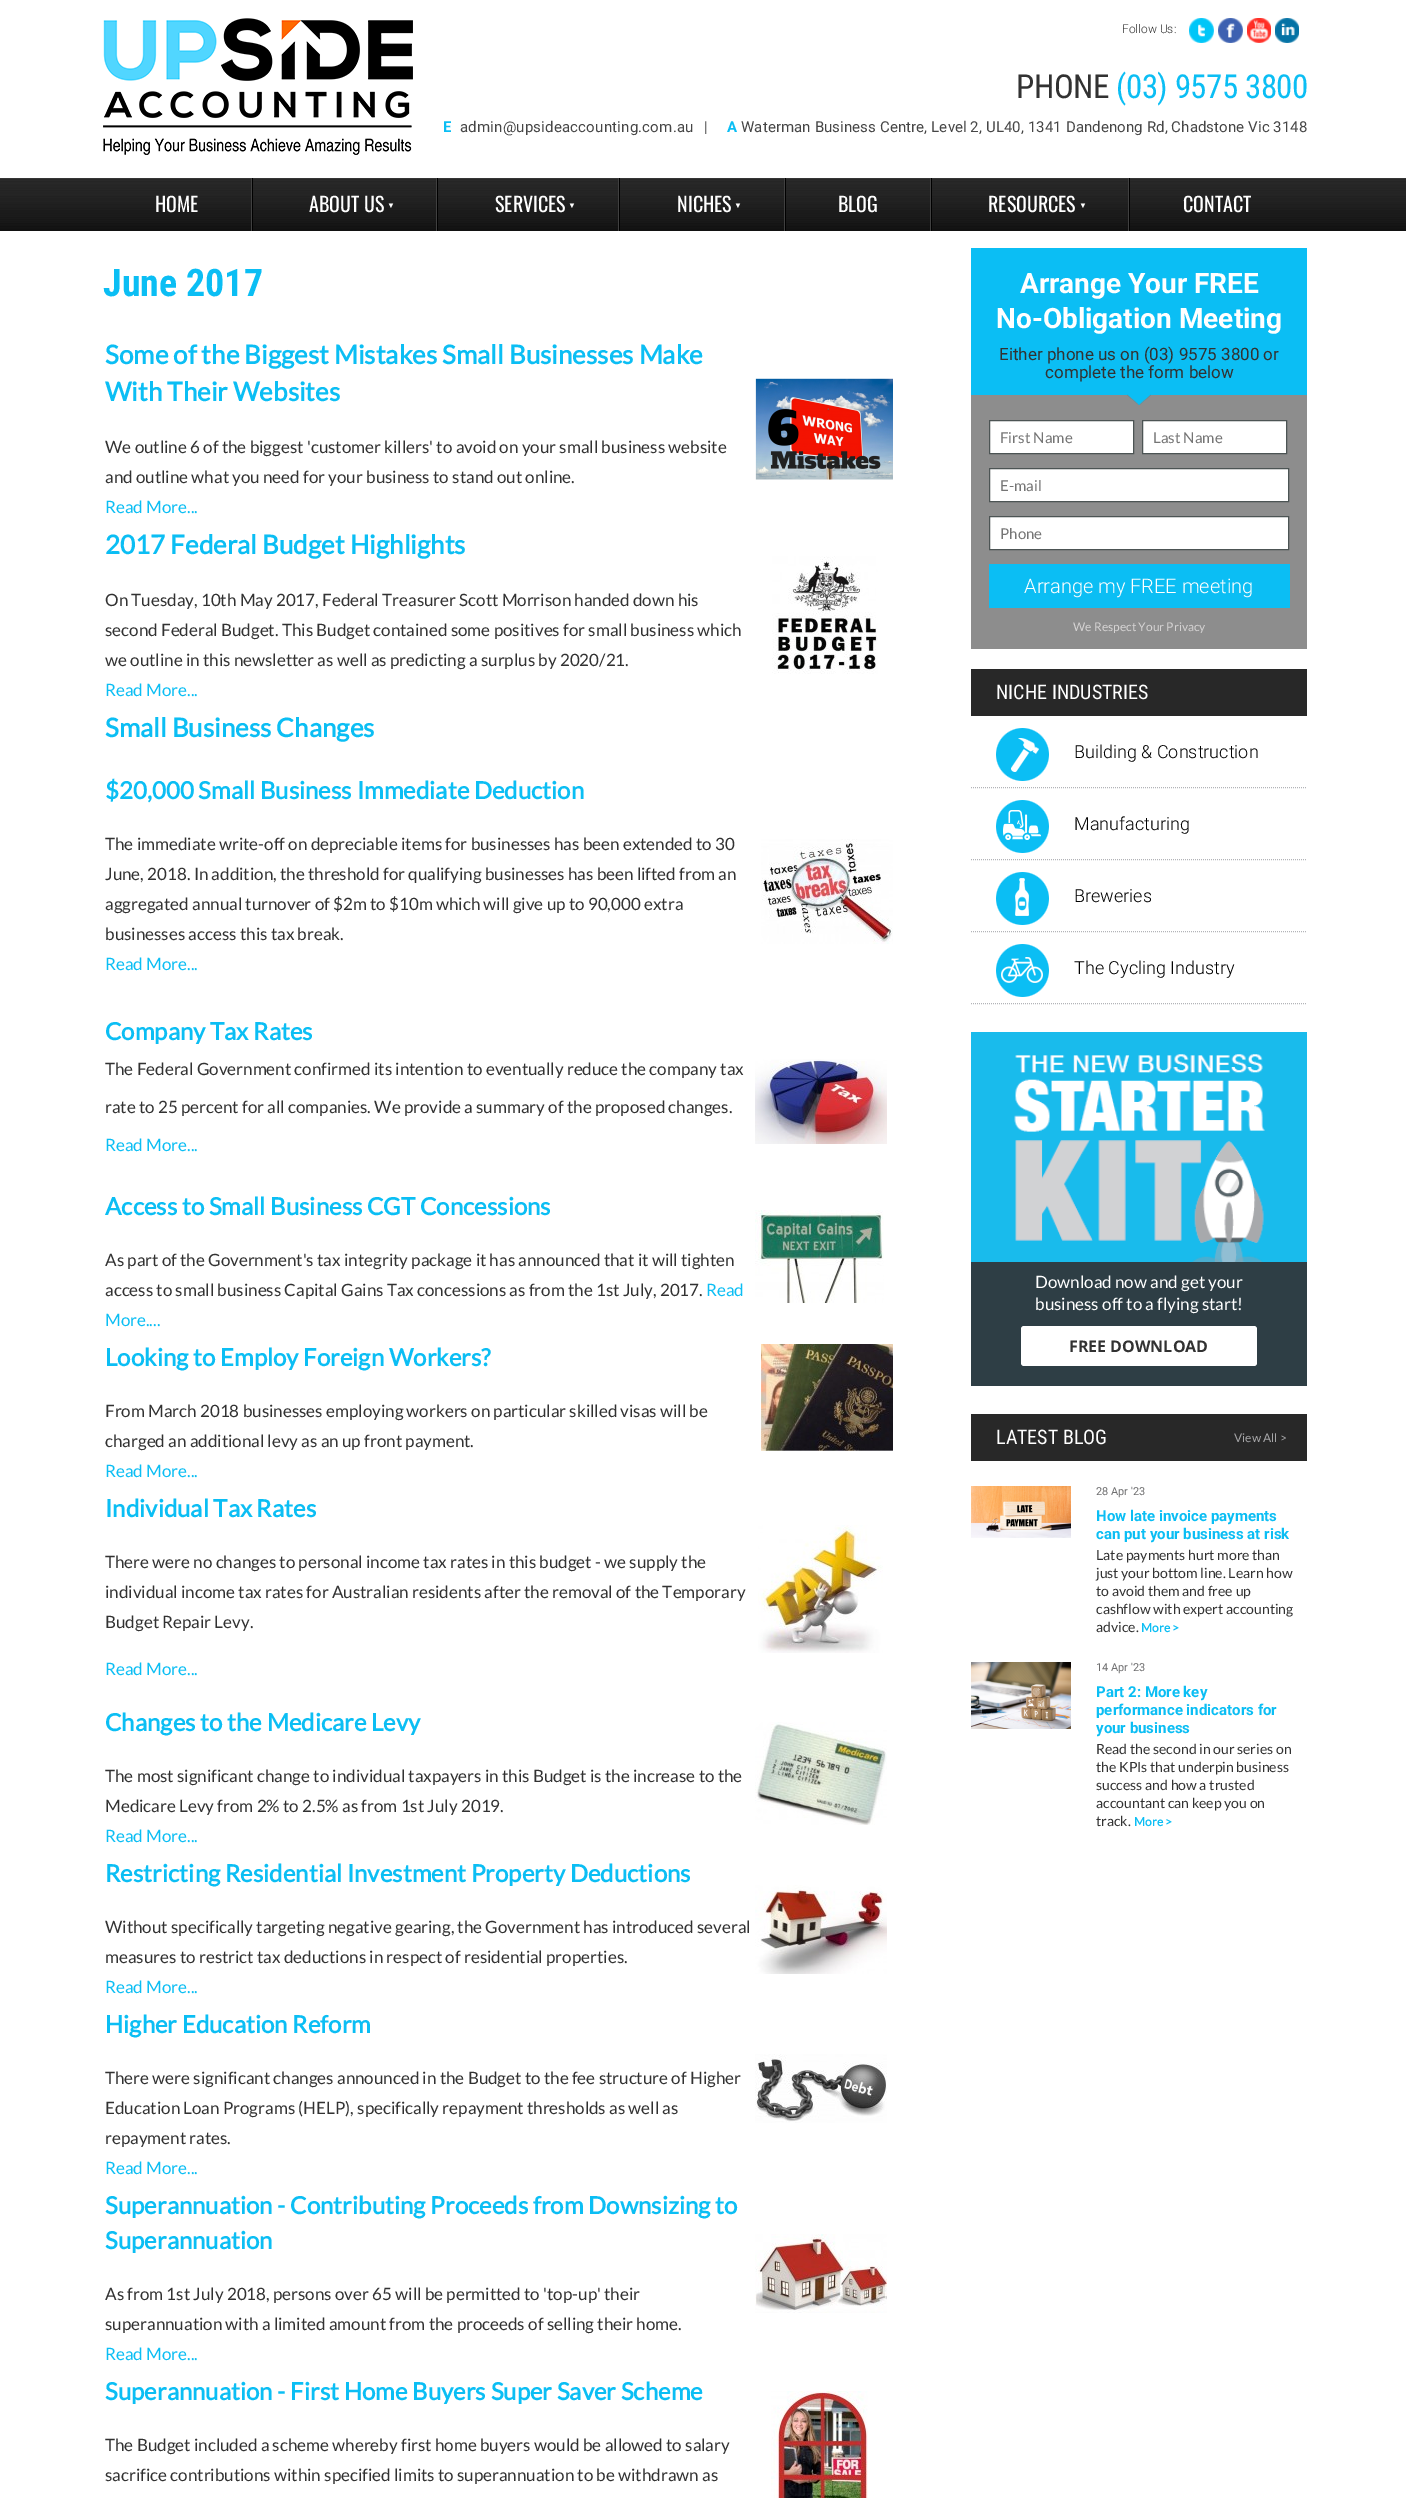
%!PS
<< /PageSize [1406 2498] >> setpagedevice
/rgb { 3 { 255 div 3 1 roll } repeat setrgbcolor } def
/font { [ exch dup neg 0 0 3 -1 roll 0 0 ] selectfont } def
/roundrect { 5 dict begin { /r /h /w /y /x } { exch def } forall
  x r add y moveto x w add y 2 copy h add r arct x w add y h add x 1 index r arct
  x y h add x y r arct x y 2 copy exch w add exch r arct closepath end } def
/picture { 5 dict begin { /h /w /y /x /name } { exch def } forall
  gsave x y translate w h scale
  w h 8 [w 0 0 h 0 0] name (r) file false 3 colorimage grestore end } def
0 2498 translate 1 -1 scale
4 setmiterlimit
255 255 255 rgb
0 0 1406 2498 rectfill
(img/1.rgb) 103 18 310 137 picture
(img/2.rgb) 1189 18 25 25 picture
(img/3.rgb) 1218 18 25 25 picture
(img/4.rgb) 1247 18 24 25 picture
(img/5.rgb) 1275 18 24 25 picture
(img/6.rgb) 0 178 1406 53 picture
[
  [251 178 1 53 64 64 64]
  [436 178 1 53 64 64 64]
  [252 178 1 53 0 0 0]
  [618 178 1 53 64 64 64]
  [437 178 1 53 0 0 0]
  [784 178 1 53 64 64 64]
  [619 178 1 53 0 0 0]
  [930 178 1 53 64 64 64]
  [785 178 1 53 0 0 0]
  [1128 178 1 53 64 64 64]
  [931 178 1 53 0 0 0]
  [1129 178 1 53 0 0 0]
] { aload pop rgb rectfill } forall
(img/7.rgb) 755 378 138 102 picture
(img/8.rgb) 772 556 106 118 picture
(img/9.rgb) 761 839 132 105 picture
(img/10.rgb) 755 1059 132 85 picture
(img/11.rgb) 755 1210 129 93 picture
(img/12.rgb) 761 1344 132 107 picture
(img/13.rgb) 758 1525 125 128 picture
(img/14.rgb) 755 1722 132 103 picture
(img/15.rgb) 755 1885 132 89 picture
(img/16.rgb) 755 2054 132 69 picture
(img/17.rgb) 755 2234 132 79 picture
(img/18.rgb) 771 2391 97 107 picture
141 141 141 rgb
971 395 336 254 rectfill
11 190 244 rgb
971 248 336 147 rectfill
(img/19.rgb) 1127 394 24 11 picture
255 255 255 rgb
989.5 420.5 moveto 1133.5 420.5 lineto 1133.5 453.5 lineto 989.5 453.5 lineto closepath gsave fill grestore
76 84 84 rgb
stroke
255 255 255 rgb
1142.5 420.5 moveto 1286.5 420.5 lineto 1286.5 453.5 lineto 1142.5 453.5 lineto closepath gsave fill grestore
76 84 84 rgb
stroke
255 255 255 rgb
989.5 468.5 moveto 1288.5 468.5 lineto 1288.5 501.5 lineto 989.5 501.5 lineto closepath gsave fill grestore
76 84 84 rgb
stroke
255 255 255 rgb
989.5 516.5 moveto 1288.5 516.5 lineto 1288.5 549.5 lineto 989.5 549.5 lineto closepath gsave fill grestore
76 84 84 rgb
stroke
11 190 244 rgb
989 564 301 44 rectfill
40 40 40 rgb
971 669 336 47 rectfill
179 180 184 rgb
[1 1] 0 setdash
971 787.5 moveto 1307 787.5 lineto stroke
(img/20.rgb) 996 728 53 53 picture
971 859.5 moveto 1307 859.5 lineto stroke
(img/21.rgb) 996 800 53 53 picture
971 931.5 moveto 1307 931.5 lineto stroke
(img/22.rgb) 996 872 53 53 picture
971 1003.5 moveto 1307 1003.5 lineto stroke
(img/23.rgb) 996 944 53 53 picture
46 62 69 rgb
971 1262 336 124 rectfill
(img/24.rgb) 971 1032 336 230 picture
255 255 255 rgb
1021 1326 236 40 3 roundrect fill
40 40 40 rgb
971 1414 336 47 rectfill
(img/25.rgb) 971 1486 100 52 picture
(img/26.rgb) 971 1662 100 67 picture
/Roboto-Light 12 font
50 50 50 rgb
1122 33 moveto (Follow Us:) show
/RobotoCondensed-Regular 33 font
1016 98 moveto -0.5 0 (PHONE) ashow
11 190 244 rgb
1116 98 moveto -0.5 0 (\(03\) 9575 3800) ashow
/Roboto-Bold 15 font
443 132 moveto 0.1 0 (E) ashow
/Roboto-Regular 15 font
70 70 70 rgb
460 132 moveto 0.2 0 (admin@upsideaccounting.com.au) ashow
704 132 moveto 0.1 0 (|) ashow
/Roboto-Bold 15 font
11 190 244 rgb
727 132 moveto 0.1 0 (A) ashow
/Roboto-Regular 15 font
70 70 70 rgb
741 132 moveto 0.1 0 (Waterman Business Centre, Level 2, UL40, 1341 Dandenong Rd, Chadstone Vic 3148) ashow
/Oswald-Regular 20 font
255 255 255 rgb
155 212 moveto (HOME) show
309 212 moveto (ABOUT US) show
/LiberationSans-Regular 8 font
387 208 moveto (▼) show
/Oswald-Regular 20 font
495 212 moveto (SERVICES) show
/LiberationSans-Regular 8 font
568 208 moveto (▼) show
/Oswald-Regular 20 font
677 212 moveto (NICHES) show
/LiberationSans-Regular 8 font
734 208 moveto (▼) show
/Oswald-Regular 20 font
838 212 moveto (BLOG) show
988 212 moveto (RESOURCES) show
/LiberationSans-Regular 8 font
1079 208 moveto (▼) show
/Oswald-Regular 20 font
1183 212 moveto (CONTACT) show
/RobotoCondensed-Bold 38 font
11 190 244 rgb
103 296 moveto (June 2017) show
/Lato-Bold 26 font
105 364 moveto (Some of the Biggest Mistakes Small Businesses Make) show
105 401 moveto (With Their Websites) show
/Lato-Regular 17 font
50 50 50 rgb
105 453 moveto (We outline 6 of the biggest 'customer killers' to avoid on your small business website) show
105 483 moveto (and outline what you need for your business to stand out online.) show
11 190 244 rgb
105 513 moveto (Read More...) show
/Lato-Bold 26 font
105 554 moveto (2017 Federal Budget Highlights) show
/Lato-Regular 17 font
50 50 50 rgb
[
  [(On Tuesday, 10th May 2017, Federal Treasurer Scott Morrison handed down his) 105 606]
  [(second Federal Budget. This Budget contained some positives for small business which) 105 636]
  [(we outline in this newsletter as well as predicting a surplus by 2020/21.) 105 666]
] { aload pop moveto show } forall
11 190 244 rgb
105 696 moveto (Read More...) show
/Lato-Bold 26 font
105 737 moveto (Small Business Changes) show
/Lato-Bold 24 font
105 799 moveto ($20,000 Small Business Immediate Deduction) show
/Lato-Regular 17 font
50 50 50 rgb
[
  [(The immediate write-off on depreciable items for businesses has been extended to 30) 105 850]
  [(June, 2018. In addition, the threshold for qualifying businesses has been lifted from an) 105 880]
  [(aggregated annual turnover of $2m to $10m which will give up to 90,000 extra) 105 910]
  [(businesses access this tax break.) 105 940]
] { aload pop moveto show } forall
11 190 244 rgb
105 970 moveto (Read More...) show
/Lato-Bold 24 font
105 1040 moveto (Company Tax Rates) show
/Lato-Regular 17 font
50 50 50 rgb
105 1075 moveto (The Federal Government confirmed its intention to eventually reduce the company tax) show
105 1113 moveto (rate to 25 percent for all companies. We provide a summary of the proposed changes.) show
11 190 244 rgb
105 1151 moveto (Read More...) show
/Lato-Bold 24 font
105 1215 moveto (Access to Small Business CGT Concessions) show
/Lato-Regular 17 font
50 50 50 rgb
105 1266 moveto (As part of the Government's tax integrity package it has announced that it will tighten) show
105 1296 moveto (access to small business Capital Gains Tax concessions as from the 1st July, 2017.) show
11 190 244 rgb
706 1296 moveto (Read) show
105 1326 moveto (More....) show
/Lato-Bold 24 font
105 1366 moveto (Looking to Employ Foreign Workers?) show
/Lato-Regular 17 font
50 50 50 rgb
105 1417 moveto (From March 2018 businesses employing workers on particular skilled visas will be) show
105 1447 moveto (charged an additional levy as an up front payment.) show
11 190 244 rgb
105 1477 moveto (Read More...) show
/Lato-Bold 24 font
105 1517 moveto (Individual Tax Rates) show
/Lato-Regular 17 font
50 50 50 rgb
[
  [(There were no changes to personal income tax rates in this budget - we supply the) 105 1568]
  [(individual income tax rates for Australian residents after the removal of the Temporary) 105 1598]
  [(Budget Repair Levy.) 105 1628]
] { aload pop moveto show } forall
11 190 244 rgb
105 1675 moveto (Read More...) show
/Lato-Bold 24 font
105 1731 moveto (Changes to the Medicare Levy) show
/Lato-Regular 17 font
50 50 50 rgb
105 1782 moveto (The most significant change to individual taxpayers in this Budget is the increase to the) show
105 1812 moveto (Medicare Levy from 2% to 2.5% as from 1st July 2019.) show
11 190 244 rgb
105 1842 moveto (Read More...) show
/Lato-Bold 24 font
105 1882 moveto (Restricting Residential Investment Property Deductions) show
/Lato-Regular 17 font
50 50 50 rgb
105 1933 moveto (Without specifically targeting negative gearing, the Government has introduced several) show
105 1963 moveto (measures to restrict tax deductions in respect of residential properties.) show
11 190 244 rgb
105 1993 moveto (Read More...) show
/Lato-Bold 24 font
105 2033 moveto (Higher Education Reform) show
/Lato-Regular 17 font
50 50 50 rgb
[
  [(There were significant changes announced in the Budget to the fee structure of Higher) 105 2084]
  [(Education Loan Programs \(HELP\), specifically repayment thresholds as well as) 105 2114]
  [(repayment rates.) 105 2144]
] { aload pop moveto show } forall
11 190 244 rgb
105 2174 moveto (Read More...) show
/Lato-Bold 24 font
105 2214 moveto (Superannuation - Contributing Proceeds from Downsizing to) show
105 2249 moveto (Superannuation) show
/Lato-Regular 17 font
50 50 50 rgb
105 2300 moveto (As from 1st July 2018, persons over 65 will be permitted to 'top-up' their) show
105 2330 moveto (superannuation with a limited amount from the proceeds of selling their home.) show
11 190 244 rgb
105 2360 moveto (Read More...) show
/Lato-Bold 24 font
105 2400 moveto (Superannuation - First Home Buyers Super Saver Scheme) show
/Lato-Regular 17 font
50 50 50 rgb
105 2451 moveto (The Budget included a scheme whereby first home buyers would be allowed to salary) show
105 2481 moveto (sacrifice contributions within specified limits to superannuation to be withdrawn as) show
/Roboto-Bold 28 font
255 255 255 rgb
1020 293 moveto (Arrange Your FREE) show
996 328 moveto (No-Obligation Meeting) show
/Roboto-Regular 17 font
50 50 50 rgb
999 360 moveto (Either phone us on \(03\) 9575 3800 or) show
1045 378 moveto (complete the form below) show
/Lato-Regular 15 font
117 117 117 rgb
[
  [(First Name) 1000 443]
  [(Last Name) 1153 443]
  [(E-mail) 1000 491]
  [(Phone) 1000 539]
] { aload pop moveto show } forall
/Roboto-Light 20 font
255 255 255 rgb
1024 593 moveto (Arrange my FREE meeting) show
/Lato-Regular 12 font
213 211 211 rgb
1073 631 moveto (We Respect Your Privacy) show
/RobotoCondensed-Regular 20 font
255 255 255 rgb
996 699 moveto (NICHE INDUSTRIES) show
/Roboto-Light 18 font
2 2 2 rgb
[
  [(Building & Construction) 1074 758]
  [(Manufacturing) 1074 830]
  [(Breweries) 1074 902]
  [(The Cycling Industry) 1074 974]
] { aload pop moveto show } forall
/Lato-Regular 17 font
255 255 255 rgb
1035 1288 moveto (Download now and get your) show
1035 1310 moveto (business off to a flying start!) show
/OpenSans-Bold 16 font
50 50 50 rgb
1069 1352 moveto (FREE DOWNLOAD) show
/RobotoCondensed-Regular 20 font
255 255 255 rgb
996 1444 moveto (LATEST BLOG) show
/Lato-Regular 12 font
165 165 167 rgb
1234 1442 moveto (View All >) show
/Roboto-Regular 11 font
111 111 112 rgb
1096 1495 moveto (28 Apr '23) show
/Roboto-Bold 15 font
11 190 244 rgb
1096 1521 moveto (How late invoice payments) show
1096 1539 moveto (can put your business at risk) show
/Lato-Regular 14 font
50 50 50 rgb
[
  [(Late payments hurt more than) 1096 1560]
  [(just your bottom line. Learn how) 1096 1578]
  [(to avoid them and free up) 1096 1596]
  [(cashflow with expert accounting) 1096 1614]
  [(advice.) 1096 1632]
] { aload pop moveto show } forall
/Lato-Bold 12 font
11 190 244 rgb
1141 1632 moveto (More >) show
/Roboto-Regular 11 font
111 111 112 rgb
1096 1671 moveto (14 Apr '23) show
/Roboto-Bold 15 font
11 190 244 rgb
[
  [(Part 2: More key) 1096 1697]
  [(performance indicators for) 1096 1715]
  [(your business) 1096 1733]
] { aload pop moveto show } forall
/Lato-Regular 14 font
50 50 50 rgb
[
  [(Read the second in our series on) 1096 1754]
  [(the KPIs that underpin business) 1096 1772]
  [(success and how a trusted) 1096 1790]
  [(accountant can keep you on) 1096 1808]
  [(track.) 1096 1826]
] { aload pop moveto show } forall
/Lato-Bold 12 font
11 190 244 rgb
1134 1826 moveto (More >) show
showpage
